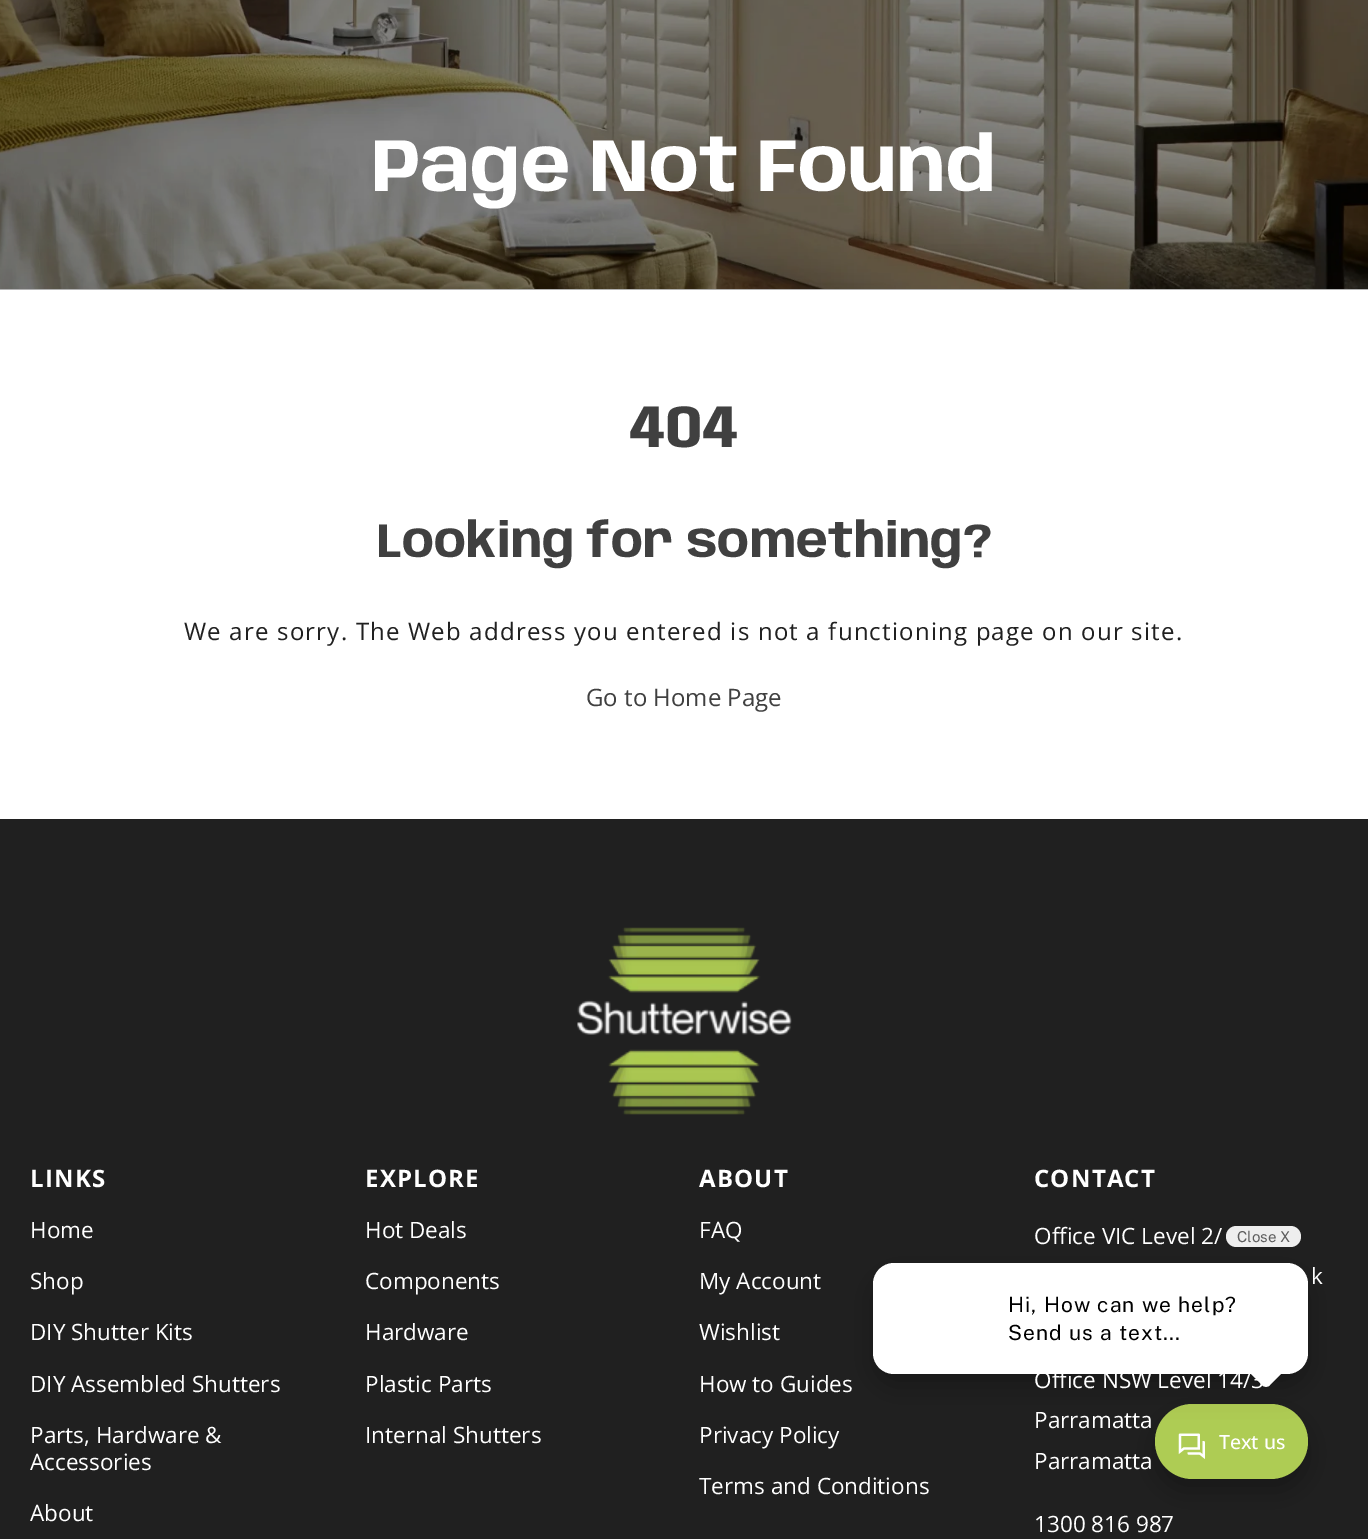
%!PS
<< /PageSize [1368 1539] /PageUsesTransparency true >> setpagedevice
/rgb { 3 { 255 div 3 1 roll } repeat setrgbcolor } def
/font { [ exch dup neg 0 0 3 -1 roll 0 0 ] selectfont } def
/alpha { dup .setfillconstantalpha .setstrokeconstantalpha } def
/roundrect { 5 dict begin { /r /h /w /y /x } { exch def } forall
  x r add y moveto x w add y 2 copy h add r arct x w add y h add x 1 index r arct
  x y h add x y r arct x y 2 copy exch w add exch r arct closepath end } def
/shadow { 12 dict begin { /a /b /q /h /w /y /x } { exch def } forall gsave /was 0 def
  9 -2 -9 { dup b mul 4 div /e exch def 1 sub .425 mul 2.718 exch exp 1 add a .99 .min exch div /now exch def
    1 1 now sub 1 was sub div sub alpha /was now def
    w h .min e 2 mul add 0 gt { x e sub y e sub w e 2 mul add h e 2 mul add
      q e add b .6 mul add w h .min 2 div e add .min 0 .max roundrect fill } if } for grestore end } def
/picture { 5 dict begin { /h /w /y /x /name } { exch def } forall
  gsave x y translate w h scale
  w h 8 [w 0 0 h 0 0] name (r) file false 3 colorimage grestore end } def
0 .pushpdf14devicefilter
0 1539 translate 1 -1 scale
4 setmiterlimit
255 255 255 rgb
0 0 1368 1539 rectfill
(img/1.rgb) 0 0 1368 289 picture
0.3 alpha
0 0 0 rgb
0 0 1368 290 rectfill
1 alpha
32 32 32 rgb
0 819 1368 720 rectfill
(img/2.rgb) 577 927 215 188 picture
0 0 0 rgb
1155 1416 153 75 37.5 15 0.24 shadow
174 204 84 rgb
1155 1404 153 75 37.5 roundrect fill
0 0 0 rgb
873 1275 435 111 21 15 0.24 shadow
255 255 255 rgb
873 1263 435 111 21 roundrect fill
238 238 238 rgb
1226 1226 75 21 10.5 roundrect fill
255 255 255 rgb
1270 1351 moveto 1283 1364 lineto 1285.5 1366 1285.5 1370 1283 1372 curveto 1270 1385 lineto 1268 1387.5 1264 1387.5 1262 1385 curveto 1249 1372 lineto 1246.5 1370 1246.5 1366 1249 1364 curveto 1262 1351 lineto 1264 1348.5 1268 1348.5 1270 1351 curveto closepath fill
(img/3.rgb) 1178 1433 27 26 picture
/Anybody-Bold 75 font
372 191 moveto (Page Not Found) show
/Anybody-Bold 60 font
64 64 64 rgb
629 447 moveto (404) show
/Anybody-Bold 48 font
377 557 moveto (Looking for something?) show
/OpenSans-Regular 24 font
32 32 32 rgb
184 640 moveto 1.2 0 (We are sorry. The Web address you entered is not a functioning page on our site.) ashow
64 64 64 rgb
586 706 moveto (Go to Home Page) show
/OpenSans-Bold 24 font
255 255 255 rgb
30 1187 moveto 1.2 0 (LINKS) ashow
/OpenSans-Regular 22.5 font
[
  [(Home) 30 1238]
  [(Shop) 30 1289]
  [(DIY Shutter Kits) 30 1340]
  [(DIY Assembled Shutters) 30 1392]
  [(Parts, Hardware &) 30 1443]
  [(Accessories) 30 1470]
  [(About) 30 1521]
] { aload pop moveto show } forall
/OpenSans-Bold 24 font
365 1187 moveto 1.2 0 (EXPLORE) ashow
/OpenSans-Regular 22.5 font
[
  [(Hot Deals) 365 1238]
  [(Components) 365 1289]
  [(Hardware) 365 1340]
  [(Plastic Parts) 365 1392]
  [(Internal Shutters) 365 1443]
] { aload pop moveto show } forall
/OpenSans-Bold 24 font
699 1187 moveto 1.2 0 (ABOUT) ashow
/OpenSans-Regular 22.5 font
[
  [(FAQ) 699 1238]
  [(My Account) 699 1289]
  [(Wishlist) 699 1340]
  [(How to Guides) 699 1392]
  [(Privacy Policy) 699 1443]
  [(Terms and Conditions) 699 1494]
] { aload pop moveto show } forall
/OpenSans-Bold 24 font
1034 1187 moveto 1.2 0 (CONTACT) ashow
/OpenSans-Regular 22.5 font
[
  [(Office VIC Level 2/) 1034 1244]
  [(k) 1311 1284]
  [(Office NSW Level 14/3) 1034 1388]
  [(Parramatta) 1034 1428]
  [(Parramatta) 1034 1469]
  [(1300 816 987) 1034 1532]
] { aload pop moveto show } forall
/PublicSans-Thin 15 font
93 93 93 rgb
1237 1242 moveto (Close X) show
/PublicSans-Thin 21 font
0 0 0 rgb
1008 1312 moveto 1.05 0 (Hi, How can we help?) ashow
1008 1340 moveto 1.05 0 (Send us a text...) ashow
/OpenSans-Medium 19.5 font
255 255 255 rgb
1219 1449 moveto (Text us) show
.poppdf14devicefilter showpage
